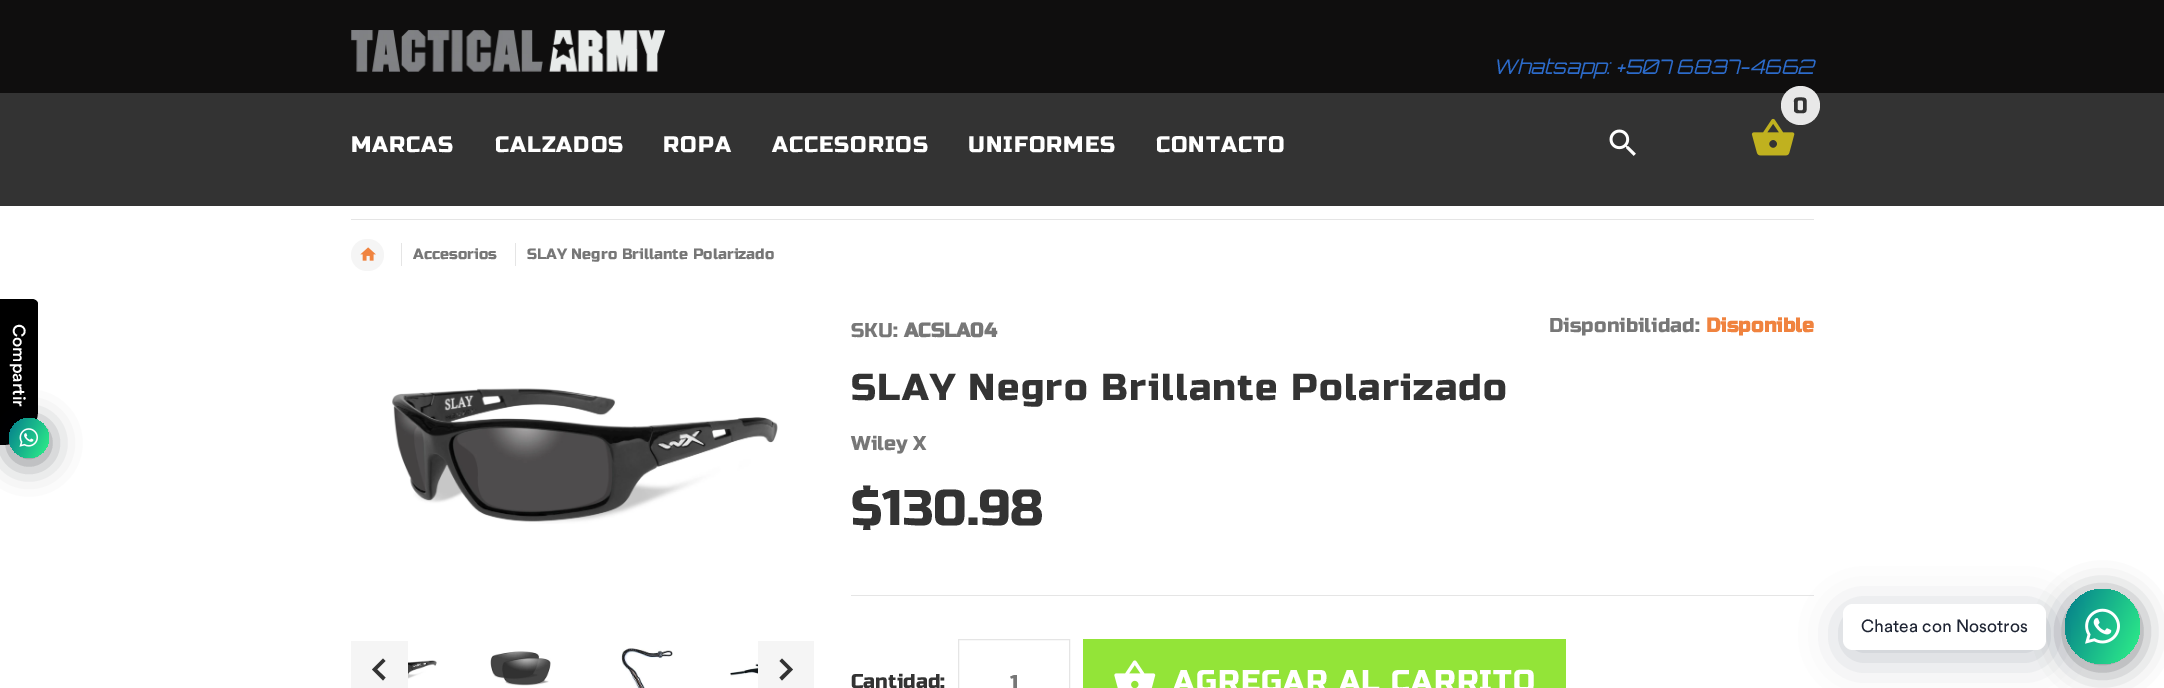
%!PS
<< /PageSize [2164 688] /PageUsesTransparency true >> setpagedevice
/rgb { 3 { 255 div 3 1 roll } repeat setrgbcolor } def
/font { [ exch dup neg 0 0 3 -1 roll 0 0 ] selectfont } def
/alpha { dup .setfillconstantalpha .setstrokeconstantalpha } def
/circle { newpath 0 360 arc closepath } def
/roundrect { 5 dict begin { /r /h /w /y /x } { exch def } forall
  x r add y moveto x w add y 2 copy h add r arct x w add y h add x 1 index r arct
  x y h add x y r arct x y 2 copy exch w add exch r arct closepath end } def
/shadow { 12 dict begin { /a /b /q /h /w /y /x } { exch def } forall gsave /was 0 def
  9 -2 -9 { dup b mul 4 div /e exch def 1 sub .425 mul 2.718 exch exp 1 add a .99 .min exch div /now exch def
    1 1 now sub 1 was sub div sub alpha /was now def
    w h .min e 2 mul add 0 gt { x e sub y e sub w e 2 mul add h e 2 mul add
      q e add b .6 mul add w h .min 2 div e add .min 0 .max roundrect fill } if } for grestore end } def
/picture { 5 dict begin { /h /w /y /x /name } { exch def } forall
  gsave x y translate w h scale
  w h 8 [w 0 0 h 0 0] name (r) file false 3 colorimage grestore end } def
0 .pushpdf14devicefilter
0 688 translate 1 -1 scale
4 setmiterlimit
255 255 255 rgb
0 0 2164 688 rectfill
15 14 14 rgb
0 0 2164 93 rectfill
(img/1.rgb) 351 30 314 42 picture
51 51 51 rgb
0 93 2164 113 rectfill
(img/2.rgb) 1751 118 44 38 picture
232 232 232 rgb
1800.5 105.5 19.5 circle fill
(img/3.rgb) 1609 129 27 27 picture
229 229 229 rgb
351 219 1463 1 rectfill
245 245 245 rgb
351 239 33 32 16 roundrect fill
(img/4.rgb) 360 247 16 14 picture
229 229 229 rgb
401 243 1 23 rectfill
515 243 1 23 rectfill
(img/5.rgb) 392 388 386 136 picture
245 245 245 rgb
351 641 57 47 rectfill
51 51 51 rgb
385.5 661 moveto 377 669.5 lineto 385.5 677.5 lineto 383 680.5 lineto 372 669.5 lineto 383 658.5 lineto closepath fill
(img/6.rgb) 408 654 29 28 picture
(img/7.rgb) 490 651 61 35 picture
(img/8.rgb) 620 648 53 40 picture
(img/9.rgb) 730 658 28 19 picture
245 245 245 rgb
758 641 56 47 rectfill
51 51 51 rgb
782 658.5 moveto 793 669.5 lineto 782 680.5 lineto 779.5 677.5 lineto 788 669.5 lineto 779.5 661 lineto closepath fill
229 229 229 rgb
851 595 963 1 rectfill
958.5 639.5 111 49 rectstroke
147 228 56 rgb
1083 639 483 49 rectfill
(img/10.rgb) 1114 660 42 28 picture
0 0 0 rgb
0 445 moveto 0 299 lineto 32 299 lineto 35 299 38 301 38 304 curveto 38 410 lineto 38 429 22 445 2 445 curveto closepath fill
2 6 16 rgb
9 423 40 40 20 15 0.5 shadow
gsave 29 438 20 circle clip newpath
<< /ShadingType 2 /ColorSpace /DeviceRGB /Coords [4.7 426 53 449] /Extend [true true] /Function << /FunctionType 2 /Domain [0 1] /C0 [0.016 0.486 0.553] /C1 [0.184 0.949 0.537] /N 1 >> >> shfill grestore
(img/11.rgb) 19 428 19 19 picture
2065 594 75 75 37.5 15 0.5 shadow
gsave 2102.5 626.5 37.5 circle clip newpath
<< /ShadingType 2 /ColorSpace /DeviceRGB /Coords [2057 605 2148 647] /Extend [true true] /Function << /FunctionType 2 /Domain [0 1] /C0 [0.016 0.486 0.553] /C1 [0.184 0.949 0.537] /N 1 >> >> shfill grestore
0 18 46 rgb
1843 611 203 47 10 20 0.24 shadow
255 255 255 rgb
1843 604 203 46 10 roundrect fill
(img/12.rgb) 2085 608 35 36 picture
/Orbitron-Italic 20 font
44 107 203 rgb
1493 74 moveto (Whatsapp: +507 6837-4662) show
/RussoOne-Regular 22 font
51 51 51 rgb
1793 113 moveto (0) show
/RussoOne-Regular 22.5 font
255 255 255 rgb
351 152 moveto 1 0 (MARCAS) ashow
495 152 moveto 1 0 (CALZADOS) ashow
663 152 moveto 1 0 (ROPA) ashow
772 152 moveto 1 0 (ACCESORIOS) ashow
968 152 moveto 1 0 (UNIFORMES) ashow
1156 152 moveto 1 0 (CONTACTO) ashow
/RussoOne-Regular 15 font
119 119 119 rgb
413 259 moveto (Accesorios) show
527 259 moveto (SLAY Negro Brillante Polarizado) show
/RussoOne-Regular 20 font
851 337 moveto (SKU:) show
/RussoOne-Bold 20 font
904 337 moveto (ACSLA04) show
/RussoOne-Regular 20 font
1549 332 moveto (Disponibilidad:) show
/RussoOne-Bold 20 font
240 131 63 rgb
1706 332 moveto (Disponible) show
/RussoOne-Regular 37.5 font
51 51 51 rgb
851 400 moveto 1.25 0 (SLAY Negro Brillante Polarizado) ashow
/RussoOne-Regular 20 font
119 119 119 rgb
851 450 moveto (Wiley X) show
/RussoOne-Regular 50 font
51 51 51 rgb
851 525 moveto ($130.98) show
/RussoOne-Regular 20 font
851 688 moveto (Cantidad:) show
119 119 119 rgb
1010 689 moveto (1) show
/RussoOne-Regular 30 font
255 255 255 rgb
1173 691 moveto 1.25 0 (AGREGAR AL CARRITO) ashow
/Circular-Medium 17.5 font
gsave 13 324 translate 90 rotate 0 0 moveto (Compartir) show grestore
/Circular-Regular 17.5 font
30 36 51 rgb
1861 632 moveto (Chatea con Nosotros) show
.poppdf14devicefilter showpage
